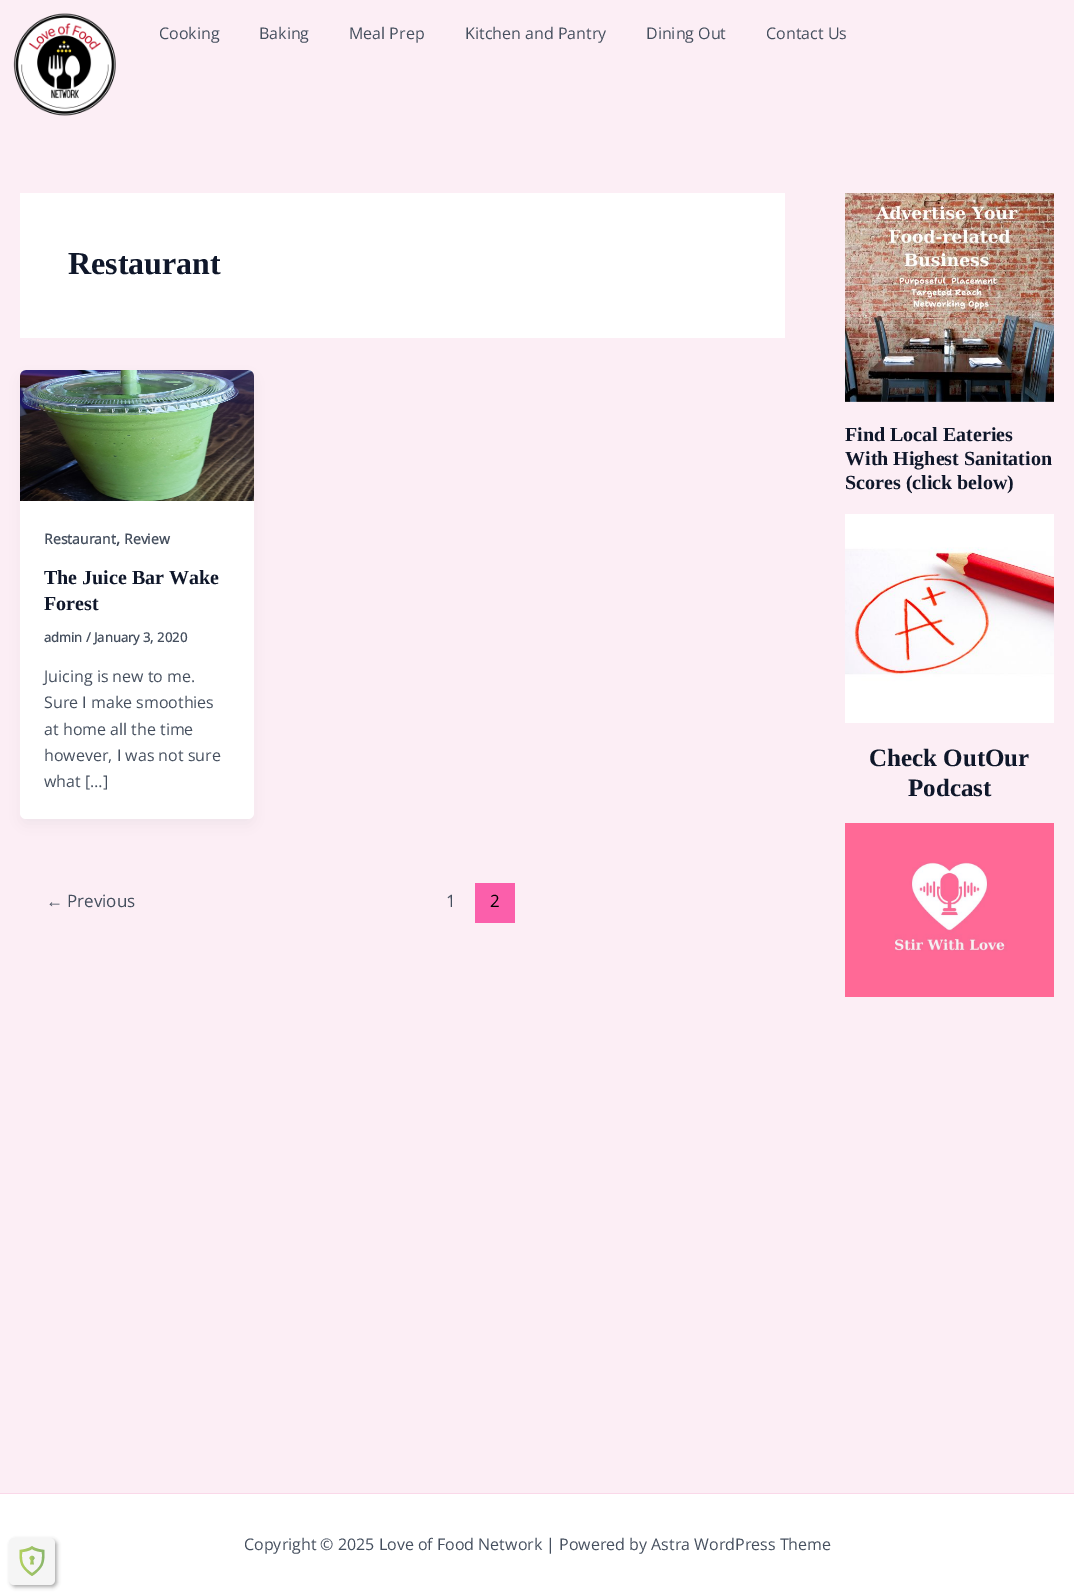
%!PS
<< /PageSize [1074 1594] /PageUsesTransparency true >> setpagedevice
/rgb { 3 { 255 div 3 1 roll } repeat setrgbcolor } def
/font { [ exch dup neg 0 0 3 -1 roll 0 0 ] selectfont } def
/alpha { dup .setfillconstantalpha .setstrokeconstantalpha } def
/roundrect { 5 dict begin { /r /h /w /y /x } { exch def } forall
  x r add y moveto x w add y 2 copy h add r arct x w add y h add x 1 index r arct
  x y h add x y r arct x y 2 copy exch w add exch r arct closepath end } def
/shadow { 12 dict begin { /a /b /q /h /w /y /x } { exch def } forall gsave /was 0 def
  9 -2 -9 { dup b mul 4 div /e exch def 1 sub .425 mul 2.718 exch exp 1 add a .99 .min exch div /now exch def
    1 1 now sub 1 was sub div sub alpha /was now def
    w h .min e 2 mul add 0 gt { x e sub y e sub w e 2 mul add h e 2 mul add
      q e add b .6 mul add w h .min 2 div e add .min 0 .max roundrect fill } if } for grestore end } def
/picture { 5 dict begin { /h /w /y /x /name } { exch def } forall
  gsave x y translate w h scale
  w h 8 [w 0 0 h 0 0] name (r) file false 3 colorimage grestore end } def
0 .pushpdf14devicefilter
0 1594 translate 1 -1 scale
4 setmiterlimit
252 238 245 rgb
0 0 1074 1594 rectfill
(img/1.rgb) 13 13 103 103 picture
255 255 255 rgb
20 193 765 145 rectfill
16 24 40 rgb
22 378 230 445 4 7.5 0.05 shadow
255 255 255 rgb
20 370 234 449 6 roundrect fill
(img/2.rgb) 20 370 234 131 picture
251 95 171 rgb
475 883 40 40 rectfill
(img/3.rgb) 845 193 209 209 picture
(img/4.rgb) 845 514 209 209 picture
(img/5.rgb) 845 823 209 174 picture
255 255 255 rgb
0 1494 1074 100 rectfill
250 216 233 rgb
0 1493 1074 1 rectfill
gsave
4 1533 moveto 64 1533 lineto 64 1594 lineto 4 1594 lineto closepath 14 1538 moveto 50 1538 lineto 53 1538 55 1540 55 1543 curveto 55 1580 lineto 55 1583 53 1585 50 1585 curveto 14 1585 lineto 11 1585 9 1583 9 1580 curveto 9 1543 lineto 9 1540 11 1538 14 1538 curveto closepath eoclip newpath
77 77 77 rgb
11 1540 46 47 5 2 0.47 shadow
grestore
0.99 alpha
245 245 245 rgb
9 1538 46 47 5 roundrect fill
1 alpha
(img/6.rgb) 19 1546 26 30 picture
/OpenSans-Regular 16 font
69 79 94 rgb
[
  [(Cooking) 159 39]
  [(Baking) 259 39]
  [(Meal Prep) 349 39]
  [(Kitchen and Pantry) 465 39]
  [(Dining Out) 646 39]
  [(Contact Us) 766 39]
] { aload pop moveto show } forall
/LiberationSerif-Bold 32 font
15 23 42 rgb
68 274 moveto (Restaurant) show
/OpenSans-Bold 14 font
69 79 94 rgb
44 544 moveto (Restaurant) show
/OpenSans-Bold 16 font
116 544 moveto (,) show
/OpenSans-Bold 14 font
124 544 moveto (Review) show
/LiberationSerif-Bold 20 font
15 23 42 rgb
44 584 moveto (The Juice Bar Wake) show
44 610 moveto (Forest) show
/OpenSans-Bold 13 font
69 79 94 rgb
44 642 moveto (admin / January 3, 2020) show
/OpenSans-Regular 16 font
[
  [(Juicing is new to me.) 44 682]
  [(Sure I make smoothies) 44 708]
  [(at home all the time) 44 735]
  [(however, I was not sure) 44 761]
  [(what […]) 44 787]
] { aload pop moveto show } forall
/LiberationSans-Regular 17 font
46 907 moveto (←) show
/OpenSans-Regular 17 font
67 907 moveto (Previous) show
446 907 moveto (1) show
0 0 0 rgb
490 907 moveto (2) show
/LiberationSerif-Bold 20 font
15 23 42 rgb
[
  [(Find Local Eateries) 845 441]
  [(With Highest Sanitation) 845 465]
  [(Scores \(click below\)) 845 489]
] { aload pop moveto show } forall
/LiberationSerif-Bold 25 font
869 766 moveto (Check OutOur) show
908 796 moveto (Podcast) show
/OpenSans-Regular 16 font
69 79 94 rgb
244 1550 moveto (Copyright © 2025 Love of Food Network | Powered by Astra WordPress Theme) show
.poppdf14devicefilter showpage
